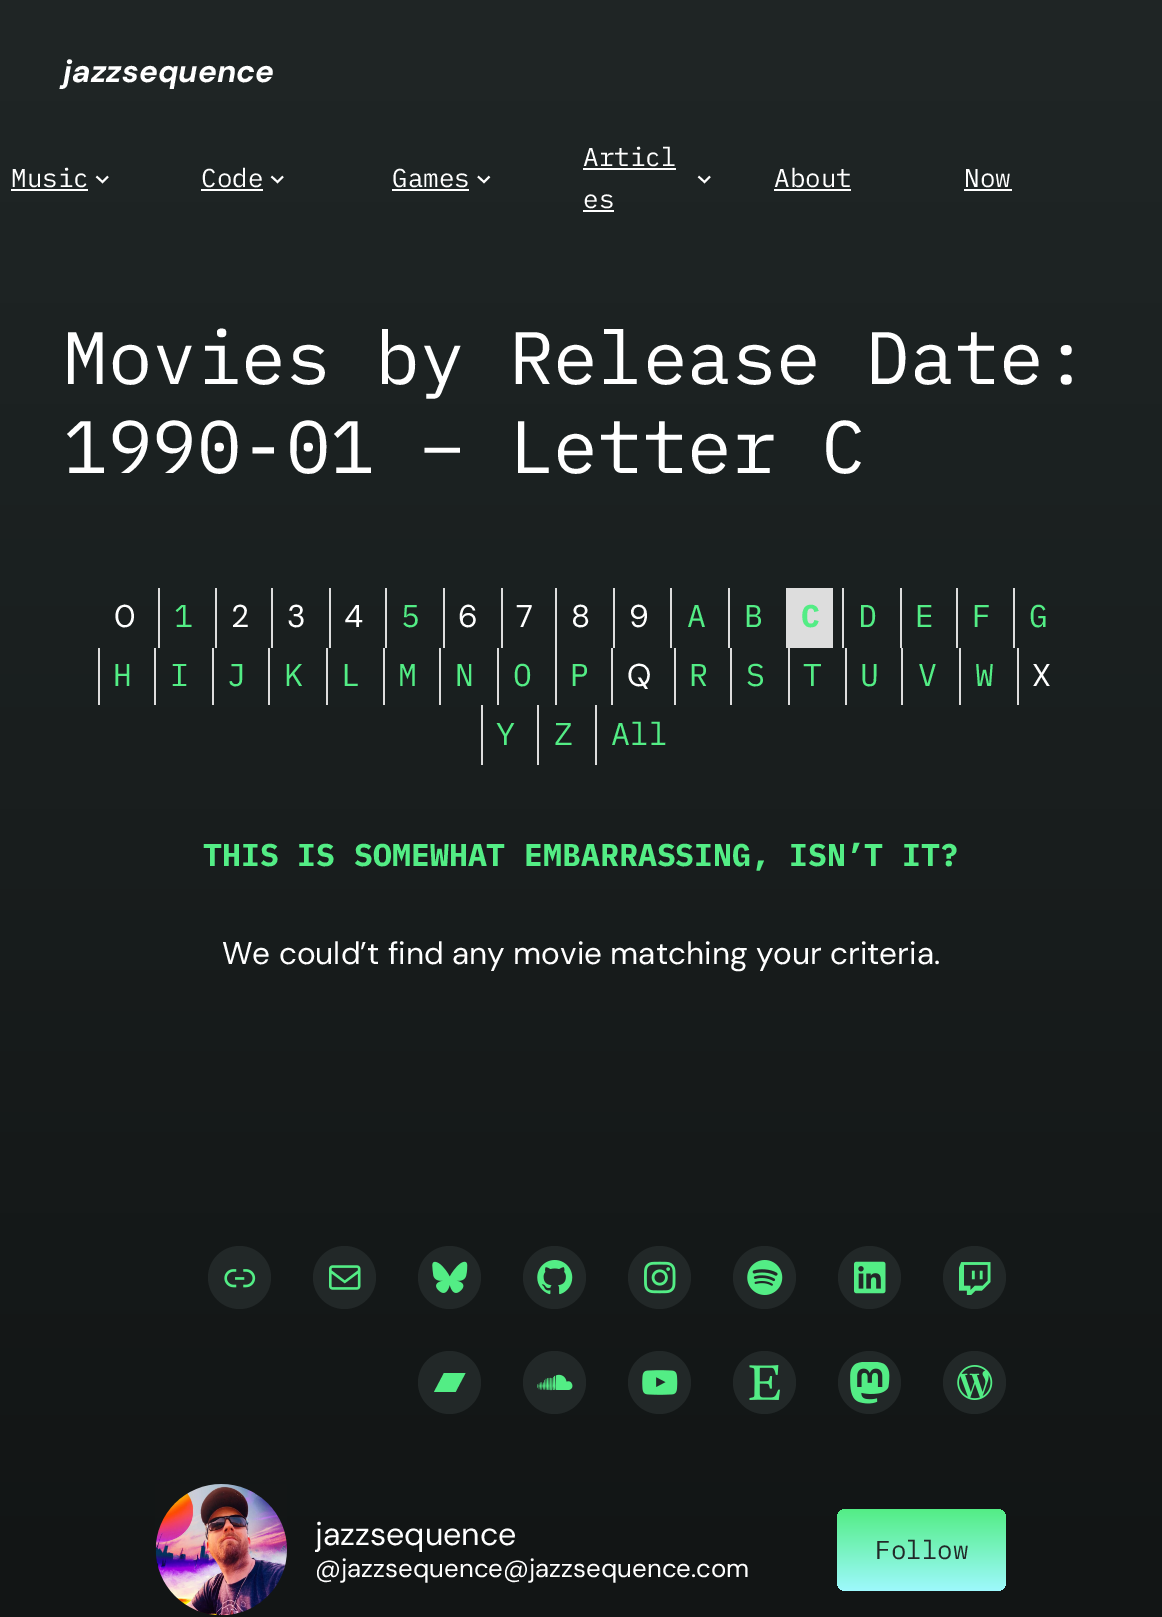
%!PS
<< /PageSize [1162 1617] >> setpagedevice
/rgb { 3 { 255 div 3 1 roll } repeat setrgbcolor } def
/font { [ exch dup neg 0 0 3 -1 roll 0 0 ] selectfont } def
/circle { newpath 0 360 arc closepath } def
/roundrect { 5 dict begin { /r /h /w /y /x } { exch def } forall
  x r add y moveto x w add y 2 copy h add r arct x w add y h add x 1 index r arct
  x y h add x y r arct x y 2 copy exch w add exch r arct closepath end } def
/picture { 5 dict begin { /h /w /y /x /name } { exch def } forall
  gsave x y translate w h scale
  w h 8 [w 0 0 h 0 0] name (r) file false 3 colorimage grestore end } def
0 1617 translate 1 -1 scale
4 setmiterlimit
255 255 255 rgb
0 0 1162 1617 rectfill
gsave 0 0 moveto 1162 0 lineto 1162 1617 lineto 0 1617 lineto closepath clip newpath
<< /ShadingType 2 /ColorSpace /DeviceRGB /Coords [581 0 581 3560] /Extend [true true] /Function << /FunctionType 2 /Domain [0 1] /C0 [0.125 0.149 0.149] /C1 [0.004 0.004 0.004] /N 1 >> >> shfill grestore
11 189 77 2 rectfill
1.9 setlinewidth
96.5 176.5 moveto 102.5 182 lineto 108 176.5 lineto stroke
201 189 62 2 rectfill
271.5 176.5 moveto 277.5 182 lineto 283 176.5 lineto stroke
392 189 77 2 rectfill
478 176.5 moveto 484 182 lineto 489.5 176.5 lineto stroke
583 168 93 2 rectfill
583 210 31 2 rectfill
698.5 176.5 moveto 704.5 182 lineto 710 176.5 lineto stroke
[
  [774 189 77 2 255 255 255]
  [964 189 48 2 255 255 255]
  [158 588 2 60 221 221 221]
  [215 588 2 60 221 221 221]
  [271 588 2 60 221 221 221]
  [329 588 2 60 221 221 221]
  [385 588 2 60 221 221 221]
  [443 588 2 60 221 221 221]
  [501 588 2 60 221 221 221]
  [555 588 2 117 221 221 221]
  [613 588 2 60 221 221 221]
  [670 588 2 60 221 221 221]
  [728 588 2 60 221 221 221]
  [786 588 47 60 221 221 221]
  [842 588 2 60 221 221 221]
  [900 588 2 60 221 221 221]
  [956 588 2 60 221 221 221]
  [1013 588 2 60 221 221 221]
  [98 648 2 57 221 221 221]
  [154 648 2 57 221 221 221]
  [212 648 2 57 221 221 221]
  [268 648 2 57 221 221 221]
  [326 648 2 57 221 221 221]
  [383 648 2 57 221 221 221]
  [439 648 2 57 221 221 221]
  [497 648 2 57 221 221 221]
  [611 648 2 57 221 221 221]
  [674 648 2 57 221 221 221]
  [730 648 2 57 221 221 221]
  [788 648 2 57 221 221 221]
  [845 648 2 57 221 221 221]
  [901 648 2 57 221 221 221]
  [959 648 2 57 221 221 221]
  [1017 648 2 57 221 221 221]
  [481 705 2 60 221 221 221]
  [537 705 2 60 221 221 221]
  [595 705 2 60 221 221 221]
] { aload pop rgb rectfill } forall
34 40 40 rgb
239.5 1277.5 31.5 circle fill
(img/1.rgb) 224 1269 32 19 picture
344.5 1277.5 31.5 circle fill
(img/2.rgb) 329 1265 32 25 picture
449.5 1277.5 31.5 circle fill
(img/3.rgb) 432 1261 36 32 picture
554.5 1277.5 31.5 circle fill
(img/4.rgb) 537 1260 36 35 picture
659.5 1277.5 31.5 circle fill
(img/5.rgb) 644 1261 32 33 picture
764.5 1277.5 31.5 circle fill
(img/6.rgb) 747 1260 36 35 picture
869.5 1277.5 31.5 circle fill
(img/7.rgb) 854 1261 32 33 picture
974.5 1277.5 31.5 circle fill
(img/8.rgb) 959 1262 32 33 picture
449.5 1382.5 31.5 circle fill
83 237 133 rgb
455.5 1392 moveto 434 1392 lineto 444 1373 lineto 465.5 1373 lineto 455.5 1392 lineto fill
34 40 40 rgb
554.5 1382.5 31.5 circle fill
(img/9.rgb) 537 1374 36 17 picture
659.5 1382.5 31.5 circle fill
(img/10.rgb) 642 1370 36 25 picture
764.5 1382.5 31.5 circle fill
(img/11.rgb) 749 1365 31 35 picture
869.5 1382.5 31.5 circle fill
(img/12.rgb) 850 1362 40 42 picture
974.5 1382.5 31.5 circle fill
(img/13.rgb) 957 1365 36 35 picture
(img/14.rgb) 155 1484 132 132 picture
gsave 837 1509 169 82 9 roundrect clip newpath
<< /ShadingType 2 /ColorSpace /DeviceRGB /Coords [921 1509 921 1591] /Extend [true true] /Function << /FunctionType 2 /Domain [0 1] /C0 [0.325 0.929 0.522] /C1 [0.62 0.976 0.992] /N 1 >> >> shfill grestore
/DMSans-BoldItalic 31.5 font
255 255 255 rgb
63 82 moveto (jazzsequence) show
/IBMPlexMono-Regular 25.9 font
[
  [(Music) 11 187]
  [(Code) 201 187]
  [(Games) 392 187]
  [(Articl) 583 166]
  [(es) 583 208]
  [(About) 774 187]
  [(Now) 964 187]
] { aload pop moveto show } forall
/IBMPlexMono-Regular 74.3 font
63 384 moveto (Movies by Release Date:) show
63 473 moveto (1990-01 − Letter C) show
/DMSans-Regular 31.5 font
114 627 moveto (0) show
/IBMPlexMono-Regular 31.5 font
83 237 133 rgb
174 627 moveto (1) show
/DMSans-Regular 31.5 font
255 255 255 rgb
[
  [(2) 231 627]
  [(3) 287 627]
  [(4) 344 627]
] { aload pop moveto show } forall
/IBMPlexMono-Regular 31.5 font
83 237 133 rgb
401 627 moveto (5) show
/DMSans-Regular 31.5 font
255 255 255 rgb
[
  [(6) 458 627]
  [(7) 516 627]
  [(8) 571 627]
  [(9) 629 627]
] { aload pop moveto show } forall
/IBMPlexMono-Regular 31.5 font
83 237 133 rgb
687 627 moveto (A) show
744 627 moveto (B) show
/IBMPlexMono-Bold 31.5 font
801 627 moveto (C) show
/IBMPlexMono-Regular 31.5 font
[
  [(D) 858 627]
  [(E) 915 627]
  [(F) 972 627]
  [(G) 1029 627]
  [(H) 113 686]
  [(I) 170 686]
  [(J) 227 686]
  [(K) 284 686]
  [(L) 341 686]
  [(M) 398 686]
  [(N) 455 686]
  [(O) 513 686]
  [(P) 570 686]
] { aload pop moveto show } forall
/DMSans-Regular 31.5 font
255 255 255 rgb
627 686 moveto (Q) show
/IBMPlexMono-Regular 31.5 font
83 237 133 rgb
[
  [(R) 689 686]
  [(S) 746 686]
  [(T) 803 686]
  [(U) 860 686]
  [(V) 918 686]
  [(W) 975 686]
] { aload pop moveto show } forall
/DMSans-Regular 31.5 font
255 255 255 rgb
1032 686 moveto (X) show
/IBMPlexMono-Regular 31.5 font
83 237 133 rgb
[
  [(Y) 496 745]
  [(Z) 554 745]
  [(All) 611 745]
] { aload pop moveto show } forall
/IBMPlexMono-Bold 31.5 font
203 866 moveto (THIS IS SOMEWHAT EMBARRASSING, ISN’T IT?) show
/DMSans-Regular 31.5 font
255 255 255 rgb
222 964 moveto (We could’t find any movie matching your criteria.) show
gsave
315 1516 494 38 rectclip
/DMSans-Regular 32.25 font
315 1545 moveto (jazzsequence) show
grestore
/DMSans-Regular 25.9 font
315 1577 moveto (@jazzsequence@jazzsequence.com) show
/IBMPlexMono-Regular 25.9 font
34 40 40 rgb
875 1559 moveto (Follow) show
showpage
